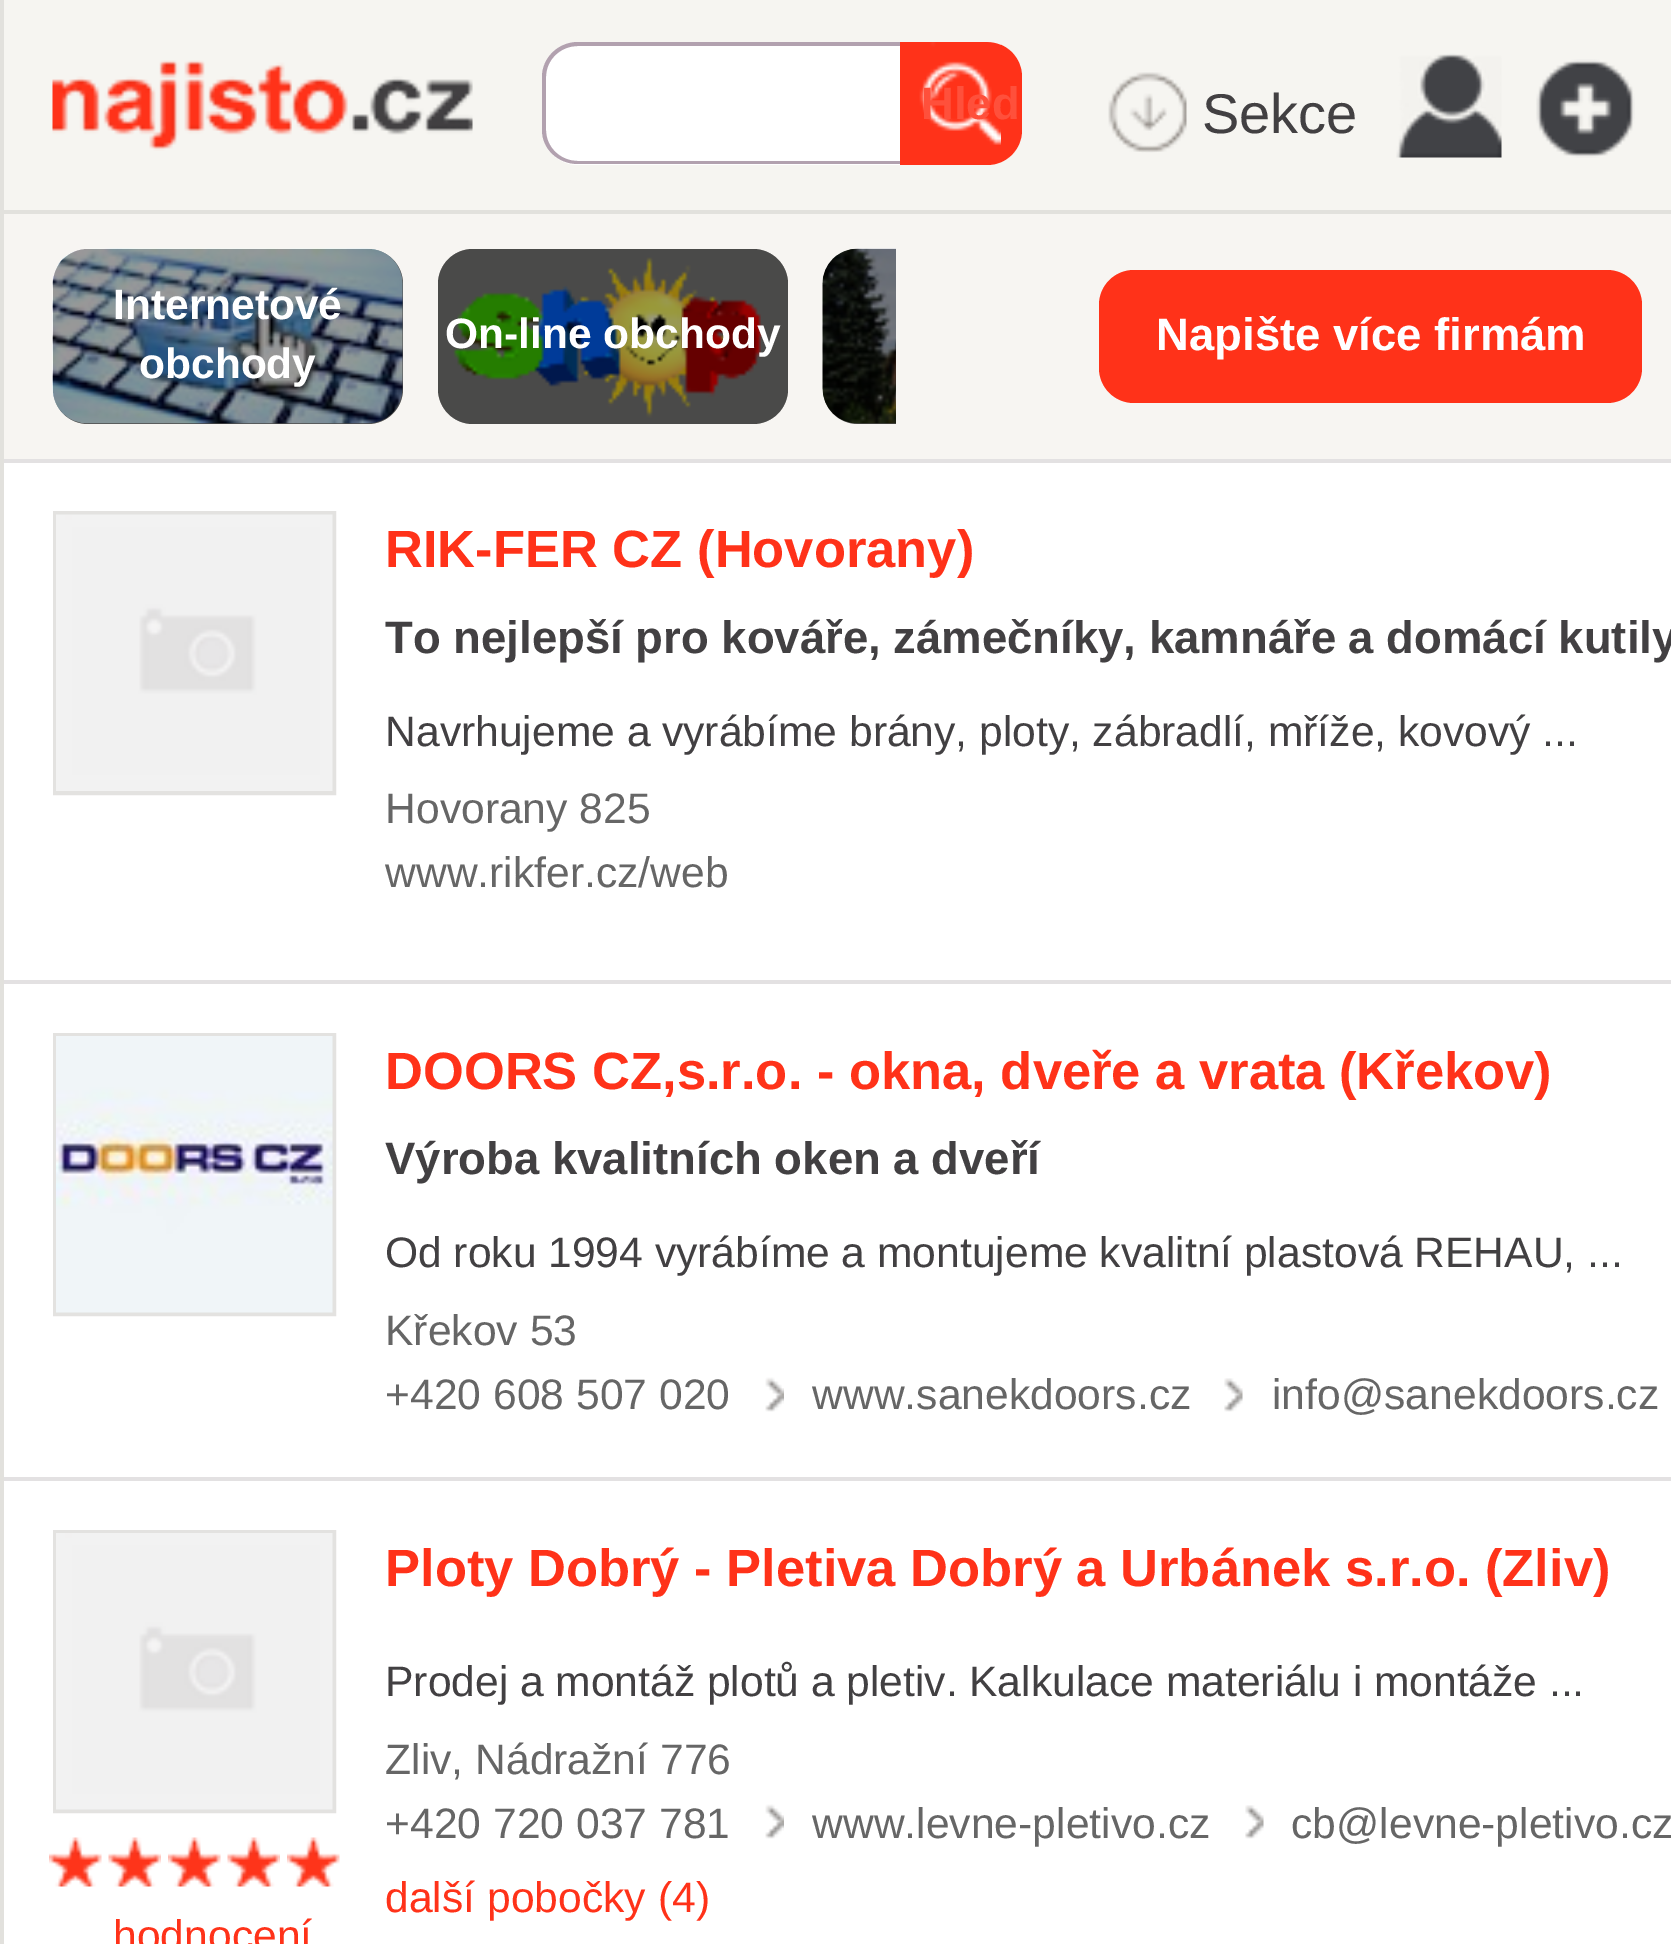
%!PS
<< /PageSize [1671 1944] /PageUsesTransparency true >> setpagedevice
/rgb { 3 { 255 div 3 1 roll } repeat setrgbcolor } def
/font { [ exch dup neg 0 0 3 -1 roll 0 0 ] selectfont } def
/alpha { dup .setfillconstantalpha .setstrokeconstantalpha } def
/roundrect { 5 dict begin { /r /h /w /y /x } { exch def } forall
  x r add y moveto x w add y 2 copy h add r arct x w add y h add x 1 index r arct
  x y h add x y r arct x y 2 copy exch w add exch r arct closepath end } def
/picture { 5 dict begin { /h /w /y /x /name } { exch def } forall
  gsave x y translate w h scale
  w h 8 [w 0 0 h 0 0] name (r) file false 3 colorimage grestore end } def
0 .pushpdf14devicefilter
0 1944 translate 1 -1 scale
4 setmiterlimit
255 255 255 rgb
0 0 1671 1944 rectfill
[
  [4 0 1667 210 246 245 241]
  [0 210 1671 4 226 225 221]
  [0 0 4 214 226 225 221]
] { aload pop rgb rectfill } forall
(img/1.rgb) 52 60 421 91 picture
255 255 255 rgb
578 42 moveto 900 42 lineto 900 165 lineto 578 165 lineto 558.5 165 543 149.5 543 130 curveto 543 77 lineto 543 57.5 558.5 42 578 42 curveto closepath fill
178 161 175 rgb
578 42 moveto 900 42 lineto 900 164 lineto 578 164 lineto 558 164 542 149 542 130 curveto 542 77 lineto 542 58 558 42 578 42 curveto closepath 578 46 moveto 900 46 lineto 900 161 lineto 578 161 lineto 560 161 546 147 546 130 curveto 546 77 lineto 546 60 560 46 578 46 curveto closepath eofill
255 50 25 rgb
900 42 moveto 987 42 lineto 1006.5 42 1022 57.5 1022 77 curveto 1022 130 lineto 1022 149.5 1006.5 165 987 165 curveto 900 165 lineto closepath fill
(img/2.rgb) 919 42 82 103 picture
(img/3.rgb) 1108 72 79 81 picture
(img/4.rgb) 1396 53 106 105 picture
(img/5.rgb) 1536 59 99 99 picture
226 225 221 rgb
0 214 4 1730 rectfill
247 245 242 rgb
4 214 1667 245 rectfill
124 123 121 rgb
53 249 350 175 35 roundrect fill
(img/6.rgb) 52 248 351 176 picture
0.4 alpha
0 0 0 rgb
53 249 350 175 35 roundrect fill
1 alpha
124 123 121 rgb
438 249 350 175 35 roundrect fill
(img/7.rgb) 453 257 312 161 picture
0.4 alpha
0 0 0 rgb
438 249 350 175 35 roundrect fill
1 alpha
124 123 121 rgb
858 249 moveto 896 249 lineto 896 424 lineto 858 424 lineto 838.5 424 823 408.5 823 389 curveto 823 284 lineto 823 264.5 838.5 249 858 249 curveto closepath fill
(img/8.rgb) 822 248 74 176 picture
0.4 alpha
0 0 0 rgb
858 249 moveto 896 249 lineto 896 424 lineto 858 424 lineto 838.5 424 823 408.5 823 389 curveto 823 284 lineto 823 264.5 838.5 249 858 249 curveto closepath fill
1 alpha
255 50 25 rgb
1099 270 543 133 35 roundrect fill
227 225 226 rgb
4 459 1667 4 rectfill
227 226 224 rgb
4 setlinewidth
55 513 279 280 rectstroke
(img/9.rgb) 56 514 277 277 picture
227 225 226 rgb
4 980 1667 4 rectfill
227 226 224 rgb
55 1035 279 279 rectstroke
(img/10.rgb) 56 1036 277 277 picture
(img/11.rgb) 765 1377 19 35 picture
(img/12.rgb) 1224 1378 19 34 picture
227 225 226 rgb
4 1477 1667 4 rectfill
227 226 224 rgb
55 1532 279 279 rectstroke
(img/13.rgb) 56 1533 277 277 picture
(img/11.rgb) 765 1804 19 35 picture
(img/12.rgb) 1245 1805 19 34 picture
(img/14.rgb) 49 1837 53 50 picture
(img/15.rgb) 108 1837 53 50 picture
(img/14.rgb) 168 1837 53 50 picture
(img/16.rgb) 227 1837 53 50 picture
(img/17.rgb) 287 1837 53 50 picture
/LiberationSans-Bold 45.5 font
255 80 59 rgb
921 119 moveto (Hled) show
/LiberationSans-Regular 56 font
66 64 66 rgb
1202 133 moveto (Sekce) show
/LiberationSans-Bold 42.5 font
255 255 255 rgb
[
  [(Internetové) 113 319]
  [(obchody) 139 378]
  [(On-line obchody) 445 348]
] { aload pop moveto show } forall
/LiberationSans-Bold 45.5 font
1156 350 moveto (Napište více firmám) show
/LiberationSans-Bold 52.5 font
255 50 25 rgb
385 567 moveto (RIK-FER CZ \(Hovorany\)) show
/LiberationSans-Bold 45.5 font
66 64 66 rgb
385 653 moveto (To nejlepší pro kováře, zámečníky, kamnáře a domácí kutily) show
/LiberationSans-Regular 42.65 font
385 746 moveto -0.25 0 32 (Navrhujeme a vyrábíme brány, ploty, zábradlí, mříže, kovový ...) widthshow
102 102 102 rgb
385 823 moveto (Hovorany 825) show
385 887 moveto (www.rikfer.cz/web) show
/LiberationSans-Bold 52.5 font
255 50 25 rgb
385 1089 moveto (DOORS CZ,s.r.o. - okna, dveře a vrata \(Křekov\)) show
/LiberationSans-Bold 45.5 font
66 64 66 rgb
385 1174 moveto (Výroba kvalitních oken a dveří) show
/LiberationSans-Regular 42.65 font
385 1267 moveto -0.25 0 32 (Od roku 1994 vyrábíme a montujeme kvalitní plastová REHAU, ...) widthshow
102 102 102 rgb
[
  [(Křekov 53) 385 1345]
  [(+420 608 507 020) 385 1409]
  [(www.sanekdoors.cz) 812 1409]
  [(info@sanekdoors.cz) 1272 1409]
] { aload pop moveto show } forall
/LiberationSans-Bold 52.5 font
255 50 25 rgb
385 1586 moveto (Ploty Dobrý - Pletiva Dobrý a Urbánek s.r.o. \(Zliv\)) show
/LiberationSans-Regular 42.65 font
66 64 66 rgb
385 1696 moveto -0.25 0 32 (Prodej a montáž plotů a pletiv. Kalkulace materiálu i montáže ...) widthshow
102 102 102 rgb
[
  [(Zliv, Nádražní 776) 385 1774]
  [(+420 720 037 781) 385 1838]
  [(www.levne-pletivo.cz) 812 1838]
  [(cb@levne-pletivo.cz) 1291 1838]
] { aload pop moveto show } forall
255 50 25 rgb
385 1912 moveto (další pobočky \(4\)) show
113 1950 moveto (hodnocení) show
.poppdf14devicefilter showpage
